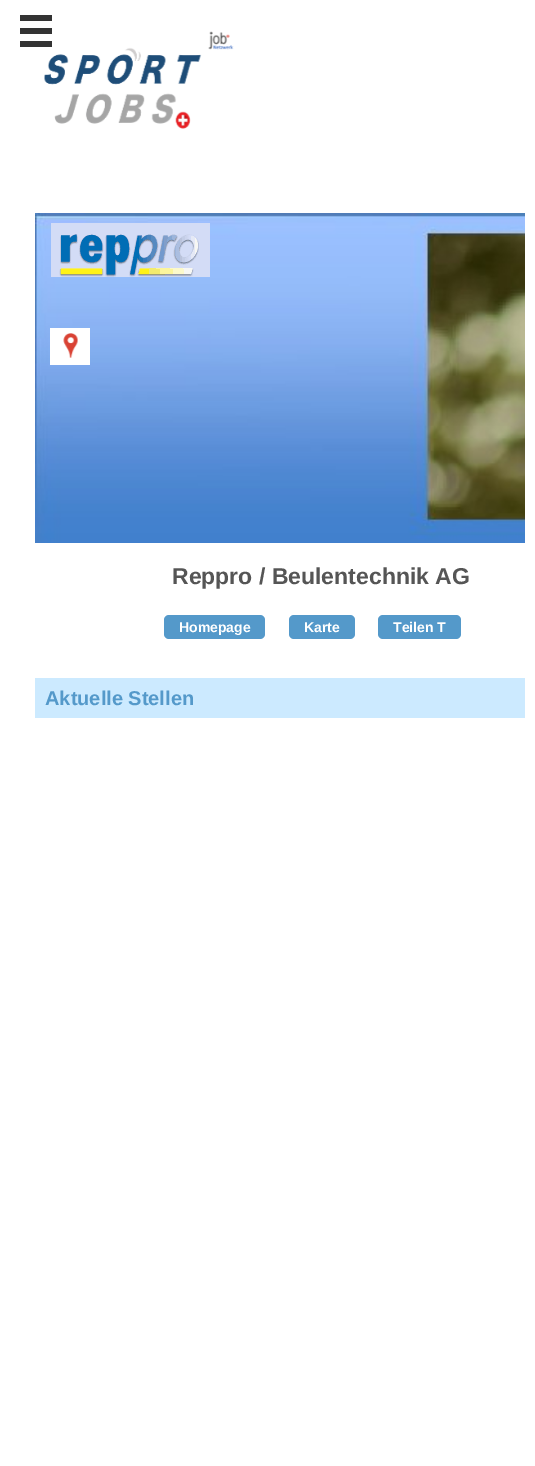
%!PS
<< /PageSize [535 1466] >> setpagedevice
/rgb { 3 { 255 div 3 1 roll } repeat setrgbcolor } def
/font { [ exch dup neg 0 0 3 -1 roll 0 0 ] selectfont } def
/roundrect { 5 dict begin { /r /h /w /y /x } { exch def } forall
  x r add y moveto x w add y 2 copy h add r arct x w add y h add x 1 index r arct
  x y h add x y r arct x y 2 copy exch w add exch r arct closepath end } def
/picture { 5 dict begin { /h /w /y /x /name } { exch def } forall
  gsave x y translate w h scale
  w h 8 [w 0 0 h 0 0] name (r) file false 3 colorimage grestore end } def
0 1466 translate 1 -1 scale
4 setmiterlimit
255 255 255 rgb
0 0 535 1466 rectfill
(img/1.rgb) 44 31 190 98 picture
[
  [20 41 32 6 51 51 51]
  [20 28 32 6 51 51 51]
  [20 15 32 6 51 51 51]
] { aload pop rgb rectfill } forall
(img/2.rgb) 35 213 490 330 picture
(img/3.rgb) 51 223 159 54 picture
255 255 255 rgb
50 328 40 37 rectfill
(img/4.rgb) 63 333 15 25 picture
84 153 202 rgb
164 615 101 24 5 roundrect fill
289 615 66 24 5 roundrect fill
378 615 83 24 5 roundrect fill
204 234 255 rgb
35 678 490 40 rectfill
/LiberationSans-Bold 23 font
85 85 85 rgb
172 584 moveto (Reppro / Beulentechnik AG) show
/LiberationSans-Bold 14 font
255 255 255 rgb
[
  [(Homepage) 179 632]
  [(Karte) 304 632]
  [(Teilen T) 393 632]
] { aload pop moveto show } forall
/LiberationSans-Bold 20 font
84 153 202 rgb
45 705 moveto (Aktuelle Stellen) show
showpage
